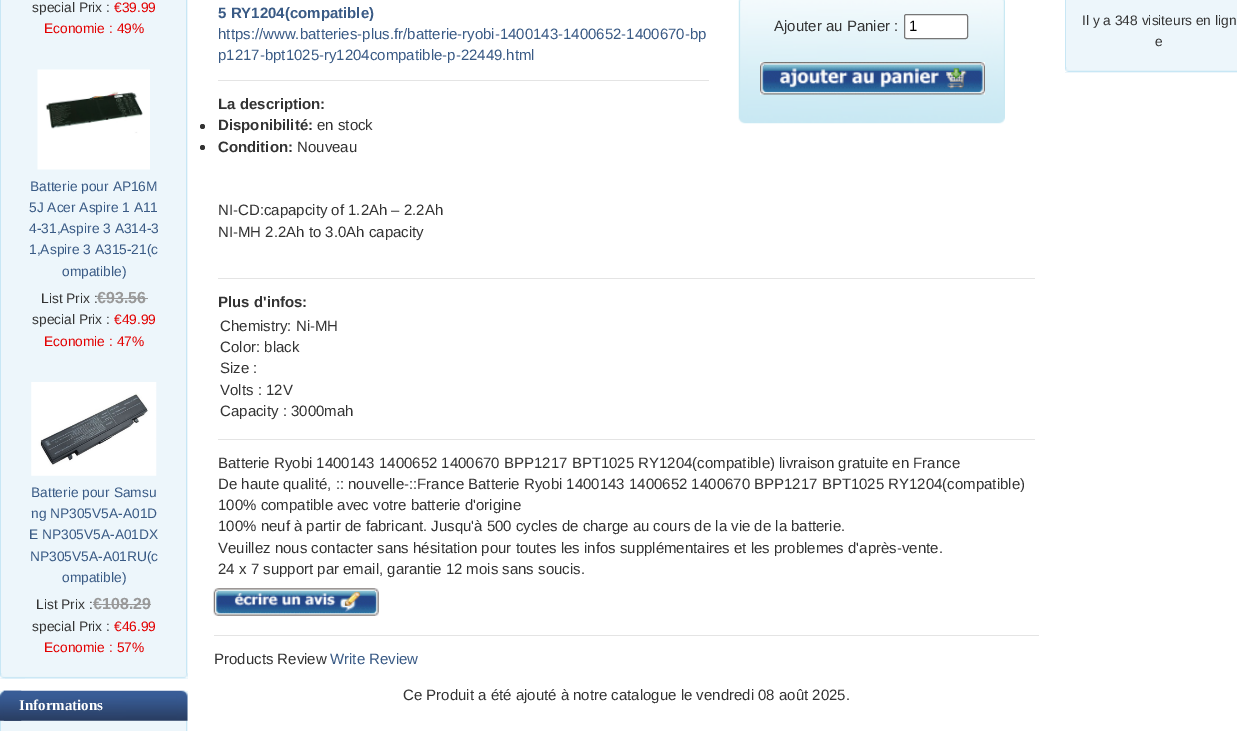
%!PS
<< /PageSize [1237 731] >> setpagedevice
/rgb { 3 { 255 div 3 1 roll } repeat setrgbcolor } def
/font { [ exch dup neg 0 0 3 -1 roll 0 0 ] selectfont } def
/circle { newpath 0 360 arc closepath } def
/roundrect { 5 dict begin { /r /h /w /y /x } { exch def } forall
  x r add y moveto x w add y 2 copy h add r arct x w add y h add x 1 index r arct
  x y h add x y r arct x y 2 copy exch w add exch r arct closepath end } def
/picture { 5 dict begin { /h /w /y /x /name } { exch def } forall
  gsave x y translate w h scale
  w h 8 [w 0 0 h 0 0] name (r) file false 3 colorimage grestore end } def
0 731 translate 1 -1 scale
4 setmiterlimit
255 255 255 rgb
0 0 1237 731 rectfill
[
  [0 0 188 679 237 246 251]
  [186 0 1 674 200 231 245]
  [0 0 1 674 200 231 245]
] { aload pop rgb rectfill } forall
(img/1.rgb) 37 69 113 101 picture
153 153 153 rgb
98 298 50 1 rectfill
(img/2.rgb) 31 382 126 94 picture
93 604 58 1 rectfill
(img/3.rgb) 0 673 25 6 picture
(img/4.rgb) 5 673 183 6 picture
237 246 251 rgb
0 691 188 40 rectfill
(img/5.rgb) 0 690 22 31 picture
(img/6.rgb) 3 690 185 31 picture
200 231 245 rgb
186 721 1 10 rectfill
0 721 1 10 rectfill
(img/7.rgb) 738 0 267 124 picture
255 255 255 rgb
904.5 14.5 63 24 2 roundrect gsave fill grestore
118 118 118 rgb
stroke
(img/8.rgb) 760 62 225 33 picture
228 228 228 rgb
218 80 491 1 rectfill
51 51 51 rgb
202.5 126.5 2.5 circle fill
202.5 147.5 2.5 circle fill
228 228 228 rgb
218 278 817 1 rectfill
218 439 817 1 rectfill
(img/9.rgb) 213 588 166 28 picture
[
  [214 635 825 1 228 228 228]
  [1065 0 172 73 237 246 251]
  [1065 0 1 68 200 231 245]
] { aload pop rgb rectfill } forall
(img/10.rgb) 1065 67 25 5 picture
(img/11.rgb) 1090 70 147 2 picture
/LiberationSans-Regular 13.75 font
51 51 51 rgb
32 12 moveto (special Prix :) show
227 0 0 rgb
114 12 moveto (€39.99) show
44 33 moveto (Economie : 49%) show
57 90 133 rgb
[
  [(Batterie pour AP16M) 30 191]
  [(5J Acer Aspire 1 A11) 29 212]
  [(4-31,Aspire 3 A314-3) 29 233]
  [(1,Aspire 3 A315-21\(c) 29 254]
  [(ompatible\)) 62 276]
] { aload pop moveto show } forall
51 51 51 rgb
41 303 moveto (List Prix :) show
/LiberationSans-Bold 16 font
153 153 153 rgb
97 303 moveto (€93.56) show
/LiberationSans-Regular 13.75 font
51 51 51 rgb
32 324 moveto (special Prix :) show
227 0 0 rgb
114 324 moveto (€49.99) show
44 346 moveto (Economie : 47%) show
57 90 133 rgb
[
  [(Batterie pour Samsu) 31 497]
  [(ng NP305V5A-A01D) 31 518]
  [(E NP305V5A-A01DX) 29 539]
  [(NP305V5A-A01RU\(c) 30 561]
  [(ompatible\)) 62 582]
] { aload pop moveto show } forall
51 51 51 rgb
36 609 moveto (List Prix :) show
/LiberationSans-Bold 16 font
153 153 153 rgb
93 609 moveto (€108.29) show
/LiberationSans-Regular 13.75 font
51 51 51 rgb
32 631 moveto (special Prix :) show
227 0 0 rgb
114 631 moveto (€46.99) show
44 652 moveto (Economie : 57%) show
/LiberationSerif-Bold 15 font
255 255 255 rgb
19 710 moveto (Informations) show
/LiberationSans-Bold 15 font
57 90 133 rgb
218 18 moveto (5 RY1204\(compatible\)) show
/LiberationSans-Regular 15 font
218 39 moveto (https://www.batteries-plus.fr/batterie-ryobi-1400143-1400652-1400670-bp) show
51 51 51 rgb
774 31 moveto (Ajouter au Panier :) show
0 0 0 rgb
909 31 moveto (1) show
57 90 133 rgb
218 60 moveto (p1217-bpt1025-ry1204compatible-p-22449.html) show
/LiberationSans-Bold 15 font
51 51 51 rgb
218 109 moveto (La description:) show
218 130 moveto (Disponibilité:) show
/LiberationSans-Regular 15 font
317 130 moveto (en stock) show
/LiberationSans-Bold 15 font
218 152 moveto (Condition:) show
/LiberationSans-Regular 15 font
[
  [(Nouveau) 297 152]
  [(NI-CD:capapcity of 1.2Ah – 2.2Ah) 218 215]
  [(NI-MH 2.2Ah to 3.0Ah capacity) 218 237]
] { aload pop moveto show } forall
/LiberationSans-Bold 15 font
218 307 moveto (Plus d'infos:) show
/LiberationSans-Regular 15 font
[
  [(Chemistry: Ni-MH) 220 331]
  [(Color: black) 220 352]
  [(Size :) 220 373]
  [(Volts : 12V) 220 395]
  [(Capacity : 3000mah) 220 416]
  [(Batterie Ryobi 1400143 1400652 1400670 BPP1217 BPT1025 RY1204\(compatible\) livraison gratuite en France) 218 468]
  [(De haute qualité, :: nouvelle-::France Batterie Ryobi 1400143 1400652 1400670 BPP1217 BPT1025 RY1204\(compatible\)) 218 489]
  [(100% compatible avec votre batterie d'origine) 218 510]
  [(100% neuf à partir de fabricant. Jusqu'à 500 cycles de charge au cours de la vie de la batterie.) 218 531]
  [(Veuillez nous contacter sans hésitation pour toutes les infos supplémentaires et les problemes d'après-vente.) 218 553]
  [(24 x 7 support par email, garantie 12 mois sans soucis.) 218 574]
  [(Products Review) 214 664]
] { aload pop moveto show } forall
57 90 133 rgb
330 664 moveto (Write Review) show
51 51 51 rgb
403 700 moveto (Ce Produit a été ajouté à notre catalogue le vendredi 08 août 2025.) show
/LiberationSans-Regular 13.75 font
1082 25 moveto (Il y a 348 visiteurs en lign) show
1155 46 moveto (e) show
showpage
